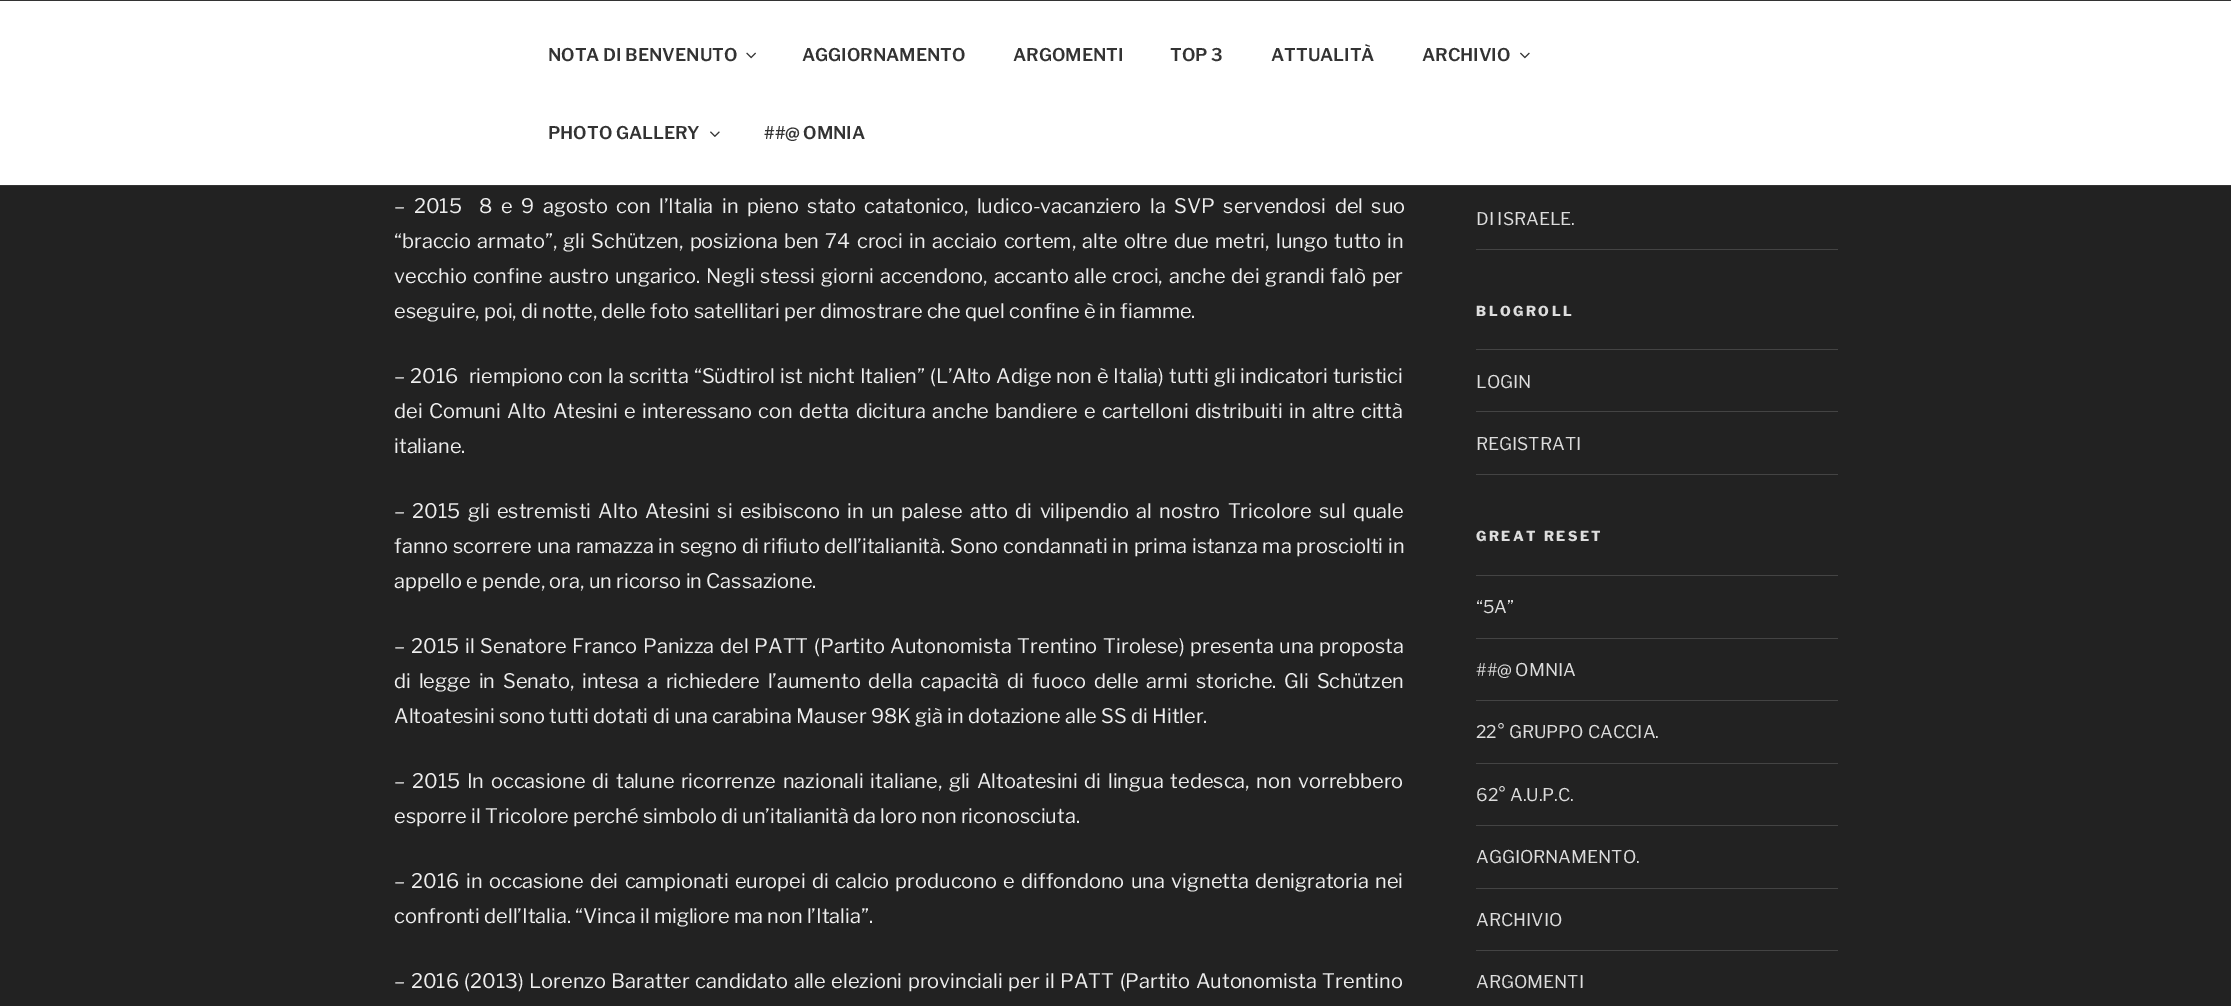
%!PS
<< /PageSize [2231 1006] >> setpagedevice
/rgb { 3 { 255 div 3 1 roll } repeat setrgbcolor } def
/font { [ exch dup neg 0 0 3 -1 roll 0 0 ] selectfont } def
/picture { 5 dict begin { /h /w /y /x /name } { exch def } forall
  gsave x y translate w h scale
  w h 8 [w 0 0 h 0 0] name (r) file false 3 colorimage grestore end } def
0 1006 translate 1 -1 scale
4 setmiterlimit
34 34 34 rgb
0 0 2231 1006 rectfill
[
  [0 1 2231 184 255 255 255]
  [0 0 2231 1 51 51 51]
  [0 185 2231 1 51 51 51]
] { aload pop rgb rectfill } forall
(img/1.rgb) 746 52 10 7 picture
(img/2.rgb) 1520 52 10 7 picture
(img/3.rgb) 710 131 10 6 picture
[
  [1476 249 362 1 68 68 68]
  [1476 349 362 1 68 68 68]
  [1476 411 362 1 68 68 68]
  [1476 474 362 1 68 68 68]
  [1476 575 362 1 68 68 68]
  [1476 638 362 1 68 68 68]
  [1476 700 362 1 68 68 68]
  [1476 763 362 1 68 68 68]
  [1476 825 362 1 68 68 68]
  [1476 888 362 1 68 68 68]
  [1476 950 362 1 68 68 68]
] { aload pop rgb rectfill } forall
/LibreFranklin-SemiBold 17.5 font
51 51 51 rgb
[
  [(NOTA DI BENVENUTO) 548 61]
  [(AGGIORNAMENTO) 802 61]
  [(ARGOMENTI) 1013 61]
  [(TOP 3) 1170 61]
  [(ATTUALITÀ) 1271 61]
  [(ARCHIVIO) 1422 61]
  [(PHOTO GALLERY) 548 139]
  [(##@ OMNIA) 764 139]
] { aload pop moveto show } forall
/LibreFranklin-Regular 20 font
238 238 238 rgb
394 213 moveto 4.25 0 32 (– 2015  8 e 9 agosto con l’Italia in pieno stato catatonico, ludico-vacanziero la SVP servendosi del suo) widthshow
394 248 moveto 2.1 0 32 (“braccio armato”, gli Schützen, posiziona ben 74 croci in acciaio cortem, alte oltre due metri, lungo tutto in) widthshow
394 283 moveto 1.6 0 32 (vecchio confine austro ungarico. Negli stessi giorni accendono, accanto alle croci, anche dei grandi falò per) widthshow
394 318 moveto (eseguire, poi, di notte, delle foto satellitari per dimostrare che quel confine è in fiamme.) show
394 383 moveto 0.8 0 32 (– 2016  riempiono con la scritta “Südtirol ist nicht Italien” \(L’Alto Adige non è Italia\) tutti gli indicatori turistici) widthshow
394 418 moveto 2 0 32 (dei Comuni Alto Atesini e interessano con detta dicitura anche bandiere e cartelloni distribuiti in altre città) widthshow
394 453 moveto (italiane.) show
394 518 moveto 3 0 32 (– 2015 gli estremisti Alto Atesini si esibiscono in un palese atto di vilipendio al nostro Tricolore sul quale) widthshow
394 553 moveto 0.5 0 32 (fanno scorrere una ramazza in segno di rifiuto dell’italianità. Sono condannati in prima istanza ma prosciolti in) widthshow
394 588 moveto (appello e pende, ora, un ricorso in Cassazione.) show
394 653 moveto 1.5 0 32 (– 2015 il Senatore Franco Panizza del PATT \(Partito Autonomista Trentino Tirolese\) presenta una proposta) widthshow
394 688 moveto 3.6 0 32 (di legge in Senato, intesa a richiedere l’aumento della capacità di fuoco delle armi storiche. Gli Schützen) widthshow
394 723 moveto (Altoatesini sono tutti dotati di una carabina Mauser 98K già in dotazione alle SS di Hitler.) show
394 788 moveto 2.4 0 32 (– 2015 In occasione di talune ricorrenze nazionali italiane, gli Altoatesini di lingua tedesca, non vorrebbero) widthshow
394 823 moveto (esporre il Tricolore perché simbolo di un’italianità da loro non riconosciuta.) show
394 888 moveto 2 0 32 (– 2016 in occasione dei campionati europei di calcio producono e diffondono una vignetta denigratoria nei) widthshow
394 923 moveto (confronti dell’Italia. “Vinca il migliore ma non l’Italia”.) show
394 988 moveto 1.25 0 32 (– 2016 \(2013\) Lorenzo Baratter candidato alle elezioni provinciali per il PATT \(Partito Autonomista Trentino) widthshow
/LibreFranklin-Regular 17.5 font
221 221 221 rgb
1476 225 moveto (DI ISRAELE.) show
/LibreFranklin-ExtraBold 13.75 font
1476 316 moveto 2.5 0 (BLOGROLL) ashow
/LibreFranklin-Regular 17.5 font
1476 388 moveto (LOGIN) show
1476 450 moveto (REGISTRATI) show
/LibreFranklin-ExtraBold 13.75 font
1476 541 moveto 2.5 0 (GREAT RESET) ashow
/LibreFranklin-Regular 17.5 font
[
  [(“5A”) 1476 613]
  [(##@ OMNIA) 1476 676]
  [(22° GRUPPO CACCIA.) 1476 738]
  [(62° A.U.P.C.) 1476 801]
  [(AGGIORNAMENTO.) 1476 863]
  [(ARCHIVIO) 1476 926]
  [(ARGOMENTI) 1476 988]
] { aload pop moveto show } forall
showpage
